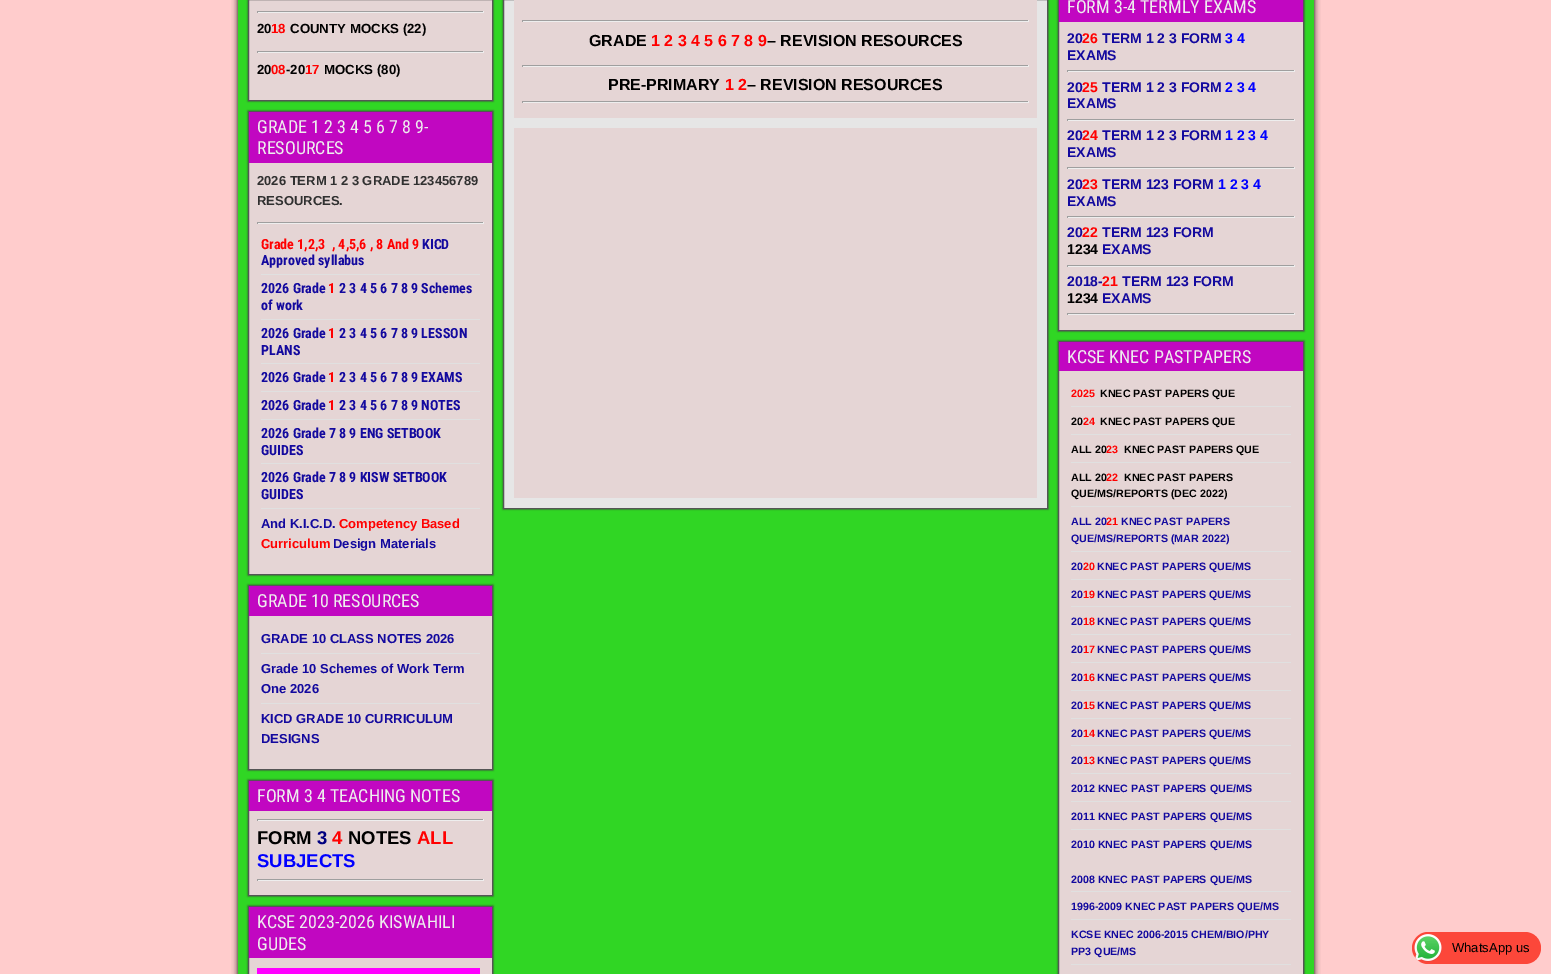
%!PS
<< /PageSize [1551 974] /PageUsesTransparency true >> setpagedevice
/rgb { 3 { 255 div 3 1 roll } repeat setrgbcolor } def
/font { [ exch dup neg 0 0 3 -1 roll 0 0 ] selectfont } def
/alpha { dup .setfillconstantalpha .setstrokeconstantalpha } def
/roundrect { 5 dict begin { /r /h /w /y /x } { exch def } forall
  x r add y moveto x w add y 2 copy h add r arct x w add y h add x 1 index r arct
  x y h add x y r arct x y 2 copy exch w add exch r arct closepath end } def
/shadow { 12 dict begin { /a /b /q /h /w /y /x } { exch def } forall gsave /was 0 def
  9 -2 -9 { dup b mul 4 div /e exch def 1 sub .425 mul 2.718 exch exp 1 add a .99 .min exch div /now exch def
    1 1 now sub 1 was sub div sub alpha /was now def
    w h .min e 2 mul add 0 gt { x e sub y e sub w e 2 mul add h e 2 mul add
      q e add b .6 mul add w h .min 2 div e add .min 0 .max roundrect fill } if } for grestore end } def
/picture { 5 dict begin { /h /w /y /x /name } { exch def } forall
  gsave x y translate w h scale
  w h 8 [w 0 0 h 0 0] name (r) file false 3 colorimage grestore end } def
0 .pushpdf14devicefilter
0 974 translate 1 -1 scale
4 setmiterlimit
255 204 204 rgb
0 0 1551 974 rectfill
0 0 0 rgb
238 -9 1076 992 0 3 1 shadow
48 214 36 rgb
238 0 1076 974 rectfill
51 51 51 rgb
248 -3 245 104 0 1 1 shadow
229 213 213 rgb
248.5 -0.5 moveto 492.5 -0.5 lineto 492.5 100.5 lineto 248.5 100.5 lineto closepath gsave fill grestore
85 85 85 rgb
stroke
[
  [257 11 227 1 159 159 159]
  [483 11 1 2 238 238 238]
  [257 12 227 1 238 238 238]
  [257 11 1 2 159 159 159]
  [257 51 227 1 159 159 159]
  [483 51 1 2 238 238 238]
  [257 52 227 1 238 238 238]
  [257 51 1 2 159 159 159]
] { aload pop rgb rectfill } forall
51 51 51 rgb
248 111 245 464 0 1 1 shadow
229 213 213 rgb
249 163 243 411 rectfill
85 85 85 rgb
248.5 111.5 244 463 rectstroke
[
  [249 112 243 51 193 7 193]
  [257 222 227 1 159 159 159]
  [483 222 1 2 238 238 238]
  [257 223 227 1 238 238 238]
  [257 222 1 2 159 159 159]
  [261 274 219 1 224 224 224]
  [261 319 219 1 224 224 224]
  [261 363 219 1 224 224 224]
  [261 391 219 1 224 224 224]
  [261 419 219 1 224 224 224]
  [261 463 219 1 224 224 224]
  [261 508 219 1 224 224 224]
] { aload pop rgb rectfill } forall
51 51 51 rgb
248 585 245 185 0 1 1 shadow
229 213 213 rgb
249 616 243 153 rectfill
85 85 85 rgb
248.5 585.5 244 184 rectstroke
[
  [249 586 243 30 193 7 193]
  [261 653 219 1 224 224 224]
  [261 703 219 1 224 224 224]
] { aload pop rgb rectfill } forall
51 51 51 rgb
248 780 245 116 0 1 1 shadow
229 213 213 rgb
249 811 243 84 rectfill
85 85 85 rgb
248.5 780.5 244 115 rectstroke
[
  [249 781 243 30 193 7 193]
  [257 819 227 1 159 159 159]
  [483 819 1 2 238 238 238]
  [257 820 227 1 238 238 238]
  [257 819 1 2 159 159 159]
  [257 879 227 1 159 159 159]
  [483 879 1 2 238 238 238]
  [257 880 227 1 238 238 238]
  [257 879 1 2 159 159 159]
] { aload pop rgb rectfill } forall
51 51 51 rgb
248 906 245 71 0 1 1 shadow
229 213 213 rgb
249 958 243 16 rectfill
85 85 85 rgb
248.5 906.5 244 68 rectstroke
193 7 193 rgb
249 907 243 51 rectfill
255 0 255 rgb
257 968 223 6 rectfill
51 51 51 rgb
503 -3 545 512 0 1 1 shadow
230 230 230 rgb
503.5 -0.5 moveto 1047.5 -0.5 lineto 1047.5 508.5 lineto 503.5 508.5 lineto closepath gsave fill grestore
85 85 85 rgb
stroke
[
  [514 0 523 118 229 213 213]
  [522 20 507 1 159 159 159]
  [1028 20 1 2 238 238 238]
  [522 21 507 1 238 238 238]
  [522 20 1 2 159 159 159]
  [522 65 507 1 159 159 159]
  [1028 65 1 2 238 238 238]
  [522 66 507 1 238 238 238]
  [522 65 1 2 159 159 159]
  [522 101 507 1 159 159 159]
  [1028 101 1 2 238 238 238]
  [522 102 507 1 238 238 238]
  [522 101 1 2 159 159 159]
  [514 128 523 370 229 213 213]
] { aload pop rgb rectfill } forall
51 51 51 rgb
1058 -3 246 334 0 1 1 shadow
229 213 213 rgb
1059 22 244 308 rectfill
85 85 85 rgb
1058.5 -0.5 245 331 rectstroke
[
  [1059 0 244 22 193 7 193]
  [1067 70 228 1 159 159 159]
  [1294 70 1 2 238 238 238]
  [1067 71 228 1 238 238 238]
  [1067 70 1 2 159 159 159]
  [1067 119 228 1 159 159 159]
  [1294 119 1 2 238 238 238]
  [1067 120 228 1 238 238 238]
  [1067 119 1 2 159 159 159]
  [1067 167 228 1 159 159 159]
  [1294 167 1 2 238 238 238]
  [1067 168 228 1 238 238 238]
  [1067 167 1 2 159 159 159]
  [1067 216 228 1 159 159 159]
  [1294 216 1 2 238 238 238]
  [1067 217 228 1 238 238 238]
  [1067 216 1 2 159 159 159]
  [1067 265 228 1 159 159 159]
  [1294 265 1 2 238 238 238]
  [1067 266 228 1 238 238 238]
  [1067 265 1 2 159 159 159]
  [1067 313 228 1 159 159 159]
  [1294 313 1 2 238 238 238]
  [1067 314 228 1 238 238 238]
  [1067 313 1 2 159 159 159]
] { aload pop rgb rectfill } forall
51 51 51 rgb
1058 341 246 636 0 1 1 shadow
229 213 213 rgb
1059 371 244 603 rectfill
85 85 85 rgb
1058.5 341.5 245 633 rectstroke
[
  [1059 342 244 29 193 7 193]
  [1071 406 220 1 224 224 224]
  [1071 434 220 1 224 224 224]
  [1071 462 220 1 224 224 224]
  [1071 506 220 1 224 224 224]
  [1071 551 220 1 224 224 224]
  [1071 579 220 1 224 224 224]
  [1071 606 220 1 224 224 224]
  [1071 634 220 1 224 224 224]
  [1071 662 220 1 224 224 224]
  [1071 690 220 1 224 224 224]
  [1071 718 220 1 224 224 224]
  [1071 745 220 1 224 224 224]
  [1071 773 220 1 224 224 224]
  [1071 801 220 1 224 224 224]
  [1071 829 220 1 224 224 224]
  [1071 891 220 1 224 224 224]
  [1071 919 220 1 224 224 224]
  [1071 964 220 1 224 224 224]
] { aload pop rgb rectfill } forall
252 71 58 rgb
1412 932 129 32 16 roundrect fill
(img/1.rgb) 1414 934 28 28 picture
/LiberationSans-Bold 13.25 font
0 0 0 rgb
257 33 moveto (20) show
255 0 0 rgb
271 33 moveto (18) show
0 0 0 rgb
290 33 moveto (COUNTY MOCKS \(22\)) show
257 74 moveto (20) show
255 0 0 rgb
271 74 moveto (08) show
0 0 0 rgb
286 74 moveto (-20) show
255 0 0 rgb
305 74 moveto (17) show
0 0 0 rgb
324 74 moveto (MOCKS \(80\)) show
/RobotoCondensed-Regular 18 font
238 238 238 rgb
257 133 moveto (GRADE 1 2 3 4 5 6 7 8 9-) show
257 154 moveto (RESOURCES) show
/LiberationSans-Bold 13 font
48 48 48 rgb
257 185 moveto (2026 TERM 1 2 3 GRADE 123456789) show
257 205 moveto (RESOURCES.) show
/RobotoCondensed-Bold 14 font
255 0 0 rgb
261 249 moveto (Grade 1,2,3  , 4,5,6 , 8 And 9) show
19 9 158 rgb
[
  [(KICD) 422 249]
  [(Approved syllabus) 261 265]
  [(2026 Grade) 261 293]
] { aload pop moveto show } forall
255 0 0 rgb
328 293 moveto (1) show
19 9 158 rgb
[
  [(2 3 4 5 6 7 8 9 Schemes) 339 293]
  [(of work) 261 310]
  [(2026 Grade) 261 338]
] { aload pop moveto show } forall
255 0 0 rgb
328 338 moveto (1) show
19 9 158 rgb
[
  [(2 3 4 5 6 7 8 9 LESSON) 339 338]
  [(PLANS) 261 355]
  [(2026 Grade) 261 382]
] { aload pop moveto show } forall
255 0 0 rgb
328 382 moveto (1) show
19 9 158 rgb
339 382 moveto (2 3 4 5 6 7 8 9 EXAMS) show
261 410 moveto (2026 Grade) show
255 0 0 rgb
328 410 moveto (1) show
19 9 158 rgb
[
  [(2 3 4 5 6 7 8 9 NOTES) 339 410]
  [(2026 Grade 7 8 9 ENG SETBOOK) 261 438]
  [(GUIDES) 261 455]
  [(2026 Grade 7 8 9 KISW SETBOOK) 261 482]
  [(GUIDES) 261 499]
] { aload pop moveto show } forall
/LiberationSans-Bold 13 font
261 528 moveto (And K.I.C.D.) show
255 0 0 rgb
339 528 moveto (Competency Based) show
261 548 moveto (Curriculum) show
19 9 158 rgb
333 548 moveto (Design Materials) show
/RobotoCondensed-Regular 18 font
238 238 238 rgb
257 607 moveto (GRADE 10 RESOURCES) show
/LiberationSans-Bold 13 font
19 9 158 rgb
[
  [(GRADE 10 CLASS NOTES 2026) 261 643]
  [(Grade 10 Schemes of Work Term) 261 673]
  [(One 2026) 261 693]
  [(KICD GRADE 10 CURRICULUM) 261 723]
  [(DESIGNS) 261 743]
] { aload pop moveto show } forall
/RobotoCondensed-Regular 18 font
238 238 238 rgb
257 802 moveto (FORM 3 4 TEACHING NOTES) show
/LiberationSans-Bold 18.5 font
0 0 0 rgb
257 844 moveto (FORM) show
0 0 128 rgb
317 844 moveto (3) show
255 0 0 rgb
332 844 moveto (4) show
0 0 0 rgb
348 844 moveto (NOTES) show
255 0 0 rgb
417 844 moveto (ALL) show
0 0 255 rgb
257 867 moveto (SUBJECTS) show
/RobotoCondensed-Regular 18 font
238 238 238 rgb
257 928 moveto (KCSE 2023-2026 KISWAHILI) show
257 950 moveto (GUDES) show
/LiberationSans-Bold 16 font
0 0 0 rgb
589 46 moveto (GRADE) show
255 0 0 rgb
651 46 moveto (1 2 3 4 5 6 7 8 9) show
0 0 0 rgb
767 46 moveto (– REVISION RESOURCES) show
608 90 moveto (PRE-PRIMARY) show
255 0 0 rgb
725 90 moveto (1 2) show
0 0 0 rgb
747 90 moveto (– REVISION RESOURCES) show
/RobotoCondensed-Regular 18 font
238 238 238 rgb
1067 13 moveto (FORM 3-4 TERMLY EXAMS) show
/LiberationSans-Bold 14 font
19 9 158 rgb
1067 43 moveto (20) show
255 0 0 rgb
1082 43 moveto (26) show
19 9 158 rgb
1102 43 moveto (TERM 1 2 3 FORM) show
0 0 255 rgb
1225 43 moveto (3 4) show
19 9 158 rgb
1067 60 moveto (EXAMS) show
1067 92 moveto (20) show
255 0 0 rgb
1082 92 moveto (25) show
19 9 158 rgb
1102 92 moveto (TERM 1 2 3 FORM) show
0 0 255 rgb
1225 92 moveto (2 3 4) show
19 9 158 rgb
1067 108 moveto (EXAMS) show
1067 140 moveto (20) show
255 0 0 rgb
1082 140 moveto (24) show
19 9 158 rgb
1102 140 moveto (TERM 1 2 3 FORM) show
0 0 255 rgb
1225 140 moveto (1 2 3 4) show
19 9 158 rgb
1067 157 moveto (EXAMS) show
1067 189 moveto (20) show
255 0 0 rgb
1082 189 moveto (23) show
19 9 158 rgb
1102 189 moveto (TERM 123 FORM) show
0 0 255 rgb
1218 189 moveto (1 2 3 4) show
19 9 158 rgb
1067 206 moveto (EXAMS) show
1067 237 moveto (20) show
255 0 0 rgb
1082 237 moveto (22) show
19 9 158 rgb
1102 237 moveto (TERM 123 FORM) show
0 0 0 rgb
1067 254 moveto (1234) show
19 9 158 rgb
1102 254 moveto (EXAMS) show
1067 286 moveto (2018-) show
255 0 0 rgb
1102 286 moveto (21) show
19 9 158 rgb
1122 286 moveto (TERM 123 FORM) show
0 0 0 rgb
1067 303 moveto (1234) show
19 9 158 rgb
1102 303 moveto (EXAMS) show
/RobotoCondensed-Regular 18 font
238 238 238 rgb
1067 363 moveto (KCSE KNEC PASTPAPERS) show
/LiberationSans-Bold 10.7 font
255 0 0 rgb
1071 397 moveto (2025) show
0 0 0 rgb
1100 397 moveto (KNEC PAST PAPERS QUE) show
1071 425 moveto (20) show
255 0 0 rgb
1083 425 moveto (24) show
0 0 0 rgb
1100 425 moveto (KNEC PAST PAPERS QUE) show
1071 453 moveto (ALL 20) show
255 0 0 rgb
1106 453 moveto (23) show
0 0 0 rgb
1124 453 moveto (KNEC PAST PAPERS QUE) show
1071 481 moveto (ALL 20) show
255 0 0 rgb
1106 481 moveto (22) show
0 0 0 rgb
1124 481 moveto (KNEC PAST PAPERS) show
1071 497 moveto (QUE/MS/REPORTS \(DEC 2022\)) show
19 9 158 rgb
1071 525 moveto (ALL 20) show
255 0 0 rgb
1106 525 moveto (21) show
19 9 158 rgb
[
  [(KNEC PAST PAPERS) 1121 525]
  [(QUE/MS/REPORTS \(MAR 2022\)) 1071 542]
  [(20) 1071 570]
] { aload pop moveto show } forall
255 0 0 rgb
1083 570 moveto (20) show
19 9 158 rgb
1097 570 moveto (KNEC PAST PAPERS QUE/MS) show
1071 598 moveto (20) show
255 0 0 rgb
1083 598 moveto (19) show
19 9 158 rgb
1097 598 moveto (KNEC PAST PAPERS QUE/MS) show
1071 625 moveto (20) show
255 0 0 rgb
1083 625 moveto (18) show
19 9 158 rgb
1097 625 moveto (KNEC PAST PAPERS QUE/MS) show
1071 653 moveto (20) show
255 0 0 rgb
1083 653 moveto (17) show
19 9 158 rgb
1097 653 moveto (KNEC PAST PAPERS QUE/MS) show
1071 681 moveto (20) show
255 0 0 rgb
1083 681 moveto (16) show
19 9 158 rgb
1097 681 moveto (KNEC PAST PAPERS QUE/MS) show
1071 709 moveto (20) show
255 0 0 rgb
1083 709 moveto (15) show
19 9 158 rgb
1097 709 moveto (KNEC PAST PAPERS QUE/MS) show
1071 737 moveto (20) show
255 0 0 rgb
1083 737 moveto (14) show
19 9 158 rgb
1097 737 moveto (KNEC PAST PAPERS QUE/MS) show
1071 764 moveto (20) show
255 0 0 rgb
1083 764 moveto (13) show
19 9 158 rgb
[
  [(KNEC PAST PAPERS QUE/MS) 1097 764]
  [(2012 KNEC PAST PAPERS QUE/MS) 1071 792]
  [(2011 KNEC PAST PAPERS QUE/MS) 1071 820]
  [(2010 KNEC PAST PAPERS QUE/MS) 1071 848]
  [(2008 KNEC PAST PAPERS QUE/MS) 1071 883]
  [(1996-2009 KNEC PAST PAPERS QUE/MS) 1071 910]
  [(KCSE KNEC 2006-2015 CHEM/BIO/PHY) 1071 938]
  [(PP3 QUE/MS) 1071 955]
] { aload pop moveto show } forall
/LiberationSans-Regular 13 font
0 0 0 rgb
1452 952 moveto (WhatsApp us) show
.poppdf14devicefilter showpage
